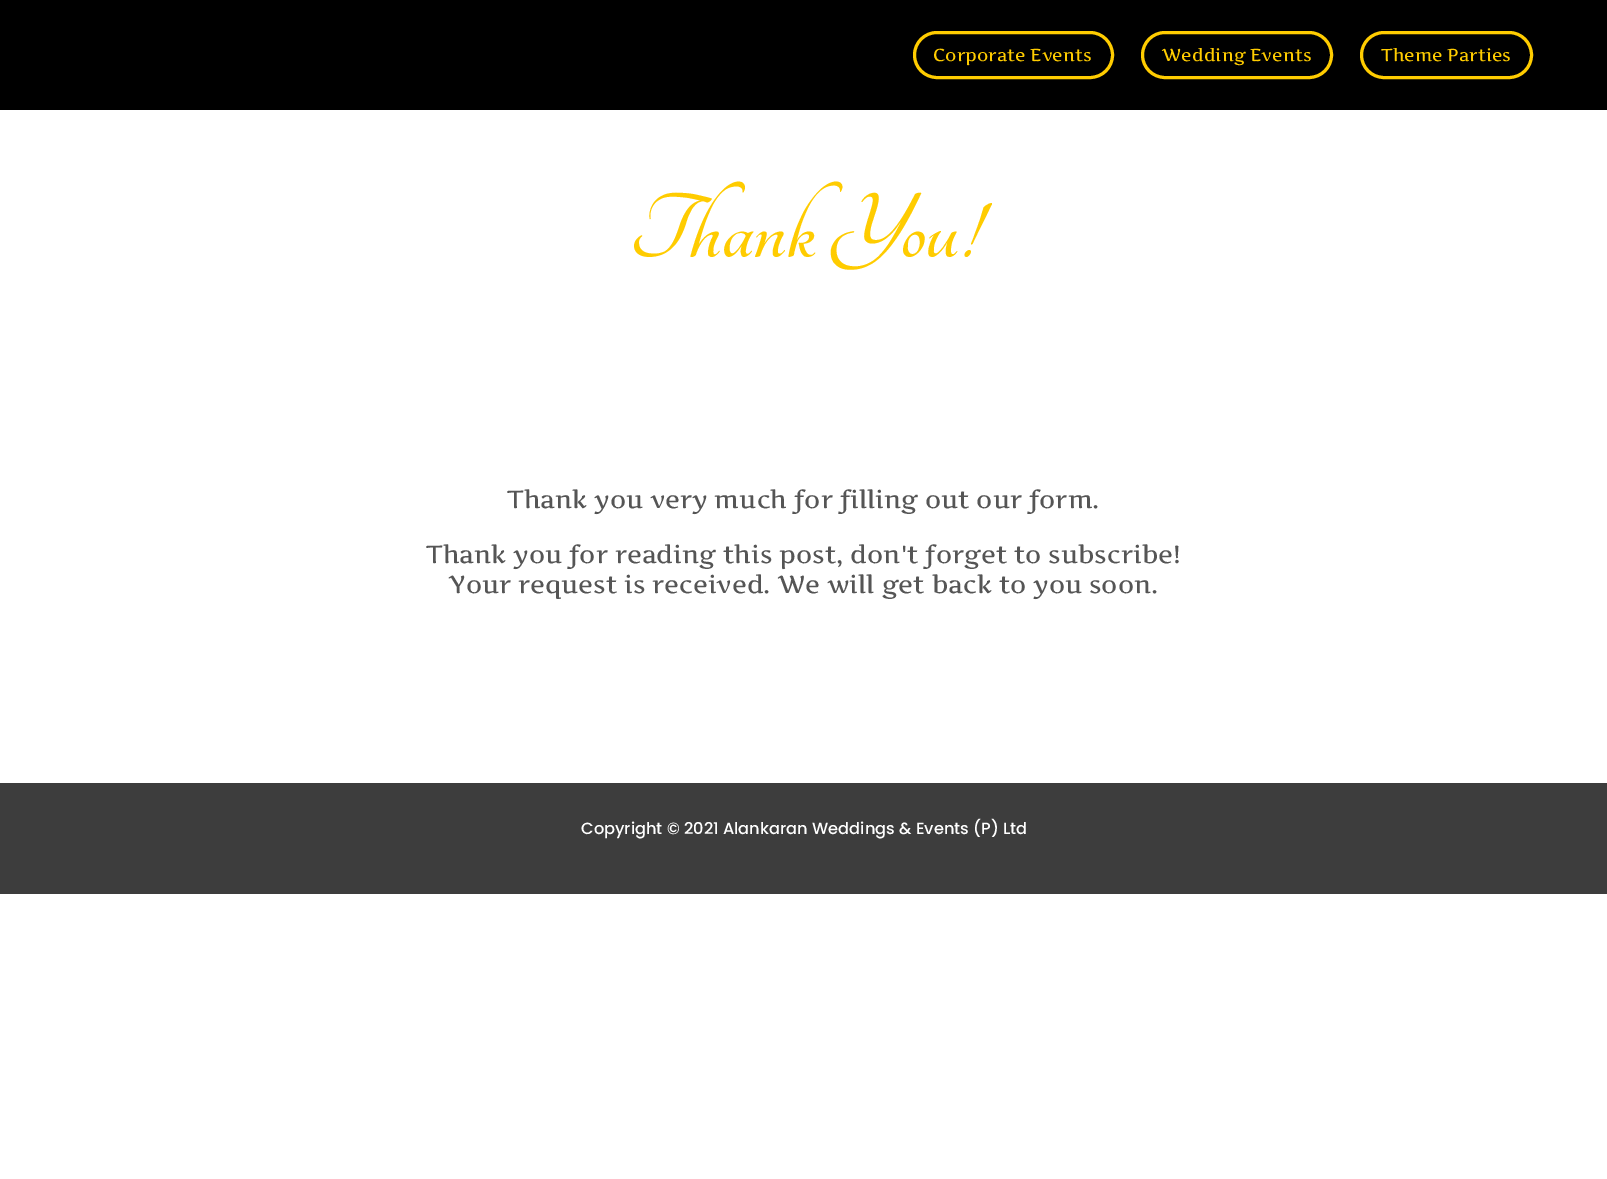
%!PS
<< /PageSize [1607 1179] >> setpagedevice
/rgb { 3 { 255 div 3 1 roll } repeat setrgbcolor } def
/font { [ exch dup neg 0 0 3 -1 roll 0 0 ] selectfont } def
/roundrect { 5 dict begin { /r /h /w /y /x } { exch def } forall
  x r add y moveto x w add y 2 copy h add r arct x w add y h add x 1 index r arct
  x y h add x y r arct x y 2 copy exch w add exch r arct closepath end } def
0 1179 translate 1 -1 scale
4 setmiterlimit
255 255 255 rgb
0 0 1607 1179 rectfill
0 0 0 rgb
0 0 1607 110 rectfill
255 204 0 rgb
3 setlinewidth
914.5 32.5 198 45 22.5 roundrect stroke
1142.5 32.5 189 45 22.5 roundrect stroke
1361.5 32.5 170 45 22.5 roundrect stroke
61 61 61 rgb
0 783 1607 111 rectfill
/Artifika-Regular 17.5 font
255 204 0 rgb
[
  [(Corporate Events) 933 61]
  [(Wedding Events) 1162 61]
  [(Theme Parties) 1381 61]
] { aload pop moveto show } forall
/Tangerine-Bold 100 font
629 257 moveto (Thank You!) show
/Artifika-Regular 25 font
85 85 85 rgb
[
  [(Thank you very much for filling out our form.) 507 508]
  [(Thank you for reading this post, don't forget to subscribe!) 426 563]
  [(Your request is received. We will get back to you soon.) 449 593]
] { aload pop moveto show } forall
/Poppins-Medium 16.25 font
255 255 255 rgb
581 834 moveto (Copyright © 2021 Alankaran Weddings & Events \(P\) Ltd) show
showpage
